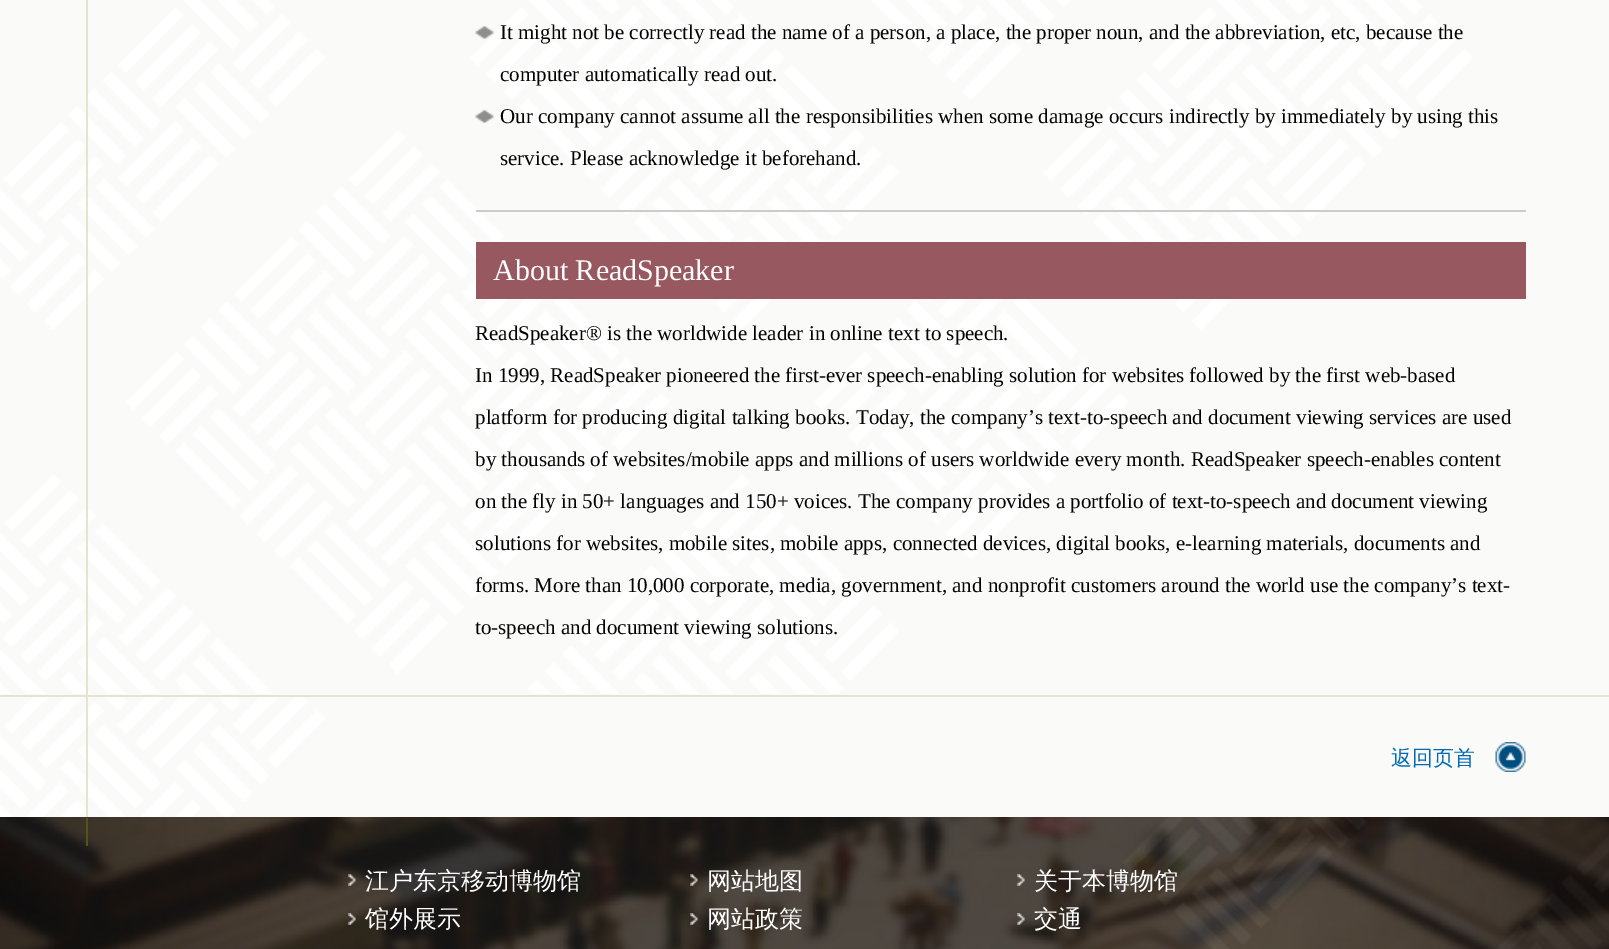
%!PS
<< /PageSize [1609 949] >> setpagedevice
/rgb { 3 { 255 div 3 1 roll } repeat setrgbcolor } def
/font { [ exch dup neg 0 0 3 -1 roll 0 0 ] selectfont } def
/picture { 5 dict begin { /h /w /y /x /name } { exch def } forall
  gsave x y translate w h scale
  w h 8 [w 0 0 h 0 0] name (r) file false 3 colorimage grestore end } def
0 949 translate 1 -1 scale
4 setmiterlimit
250 250 248 rgb
0 0 1609 949 rectfill
(img/1.rgb) 0 697 1038 120 picture
(img/2.rgb) 0 0 1472 694 picture
228 228 207 rgb
86 0 2 695 rectfill
204 204 204 rgb
476 210 1050 2 rectfill
(img/3.rgb) 475 26 19 13 picture
(img/4.rgb) 475 110 19 13 picture
[
  [476 242 1050 57 151 88 95]
  [0 695 1609 2 228 228 207]
  [86 696 2 122 228 228 207]
] { aload pop rgb rectfill } forall
(img/5.rgb) 1495 742 31 30 picture
(img/6.rgb) 0 817 1609 132 picture
85 82 22 rgb
86 818 2 28 rectfill
(img/7.rgb) 348 874 8 12 picture
(img/8.rgb) 690 874 8 12 picture
(img/9.rgb) 1017 874 8 12 picture
(img/10.rgb) 348 913 8 12 picture
(img/11.rgb) 690 913 8 12 picture
(img/12.rgb) 1017 913 8 12 picture
/LiberationSerif-Regular 21 font
0 0 0 rgb
[
  [(It might not be correctly read the name of a person, a place, the proper noun, and the abbreviation, etc, because the) 500 39]
  [(computer automatically read out.) 500 81]
  [(Our company cannot assume all the responsibilities when some damage occurs indirectly by immediately by using this) 500 123]
  [(service. Please acknowledge it beforehand.) 500 165]
] { aload pop moveto show } forall
/LiberationSerif-Regular 30 font
255 255 255 rgb
493 280 moveto (About ReadSpeaker) show
/LiberationSerif-Regular 21 font
0 0 0 rgb
[
  [(ReadSpeaker® is the worldwide leader in online text to speech.) 475 340]
  [(In 1999, ReadSpeaker pioneered the first-ever speech-enabling solution for websites followed by the first web-based) 475 382]
  [(platform for producing digital talking books. Today, the company’s text-to-speech and document viewing services are used) 475 424]
  [(by thousands of websites/mobile apps and millions of users worldwide every month. ReadSpeaker speech-enables content) 475 466]
  [(on the fly in 50+ languages and 150+ voices. The company provides a portfolio of text-to-speech and document viewing) 475 508]
  [(solutions for websites, mobile sites, mobile apps, connected devices, digital books, e-learning materials, documents and) 475 550]
  [(forms. More than 10,000 corporate, media, government, and nonprofit customers around the world use the company’s text-) 475 592]
  [(to-speech and document viewing solutions.) 475 634]
] { aload pop moveto show } forall
/WenQuanYiZenHei-Medium 21 font
0 106 179 rgb
1391 765 moveto (返回页首) show
/WenQuanYiZenHei-Medium 24 font
255 255 255 rgb
[
  [(江户东京移动博物馆) 365 889]
  [(网站地图) 707 889]
  [(关于本博物馆) 1034 889]
  [(馆外展示) 365 927]
  [(网站政策) 707 927]
  [(交通) 1034 927]
] { aload pop moveto show } forall
showpage
